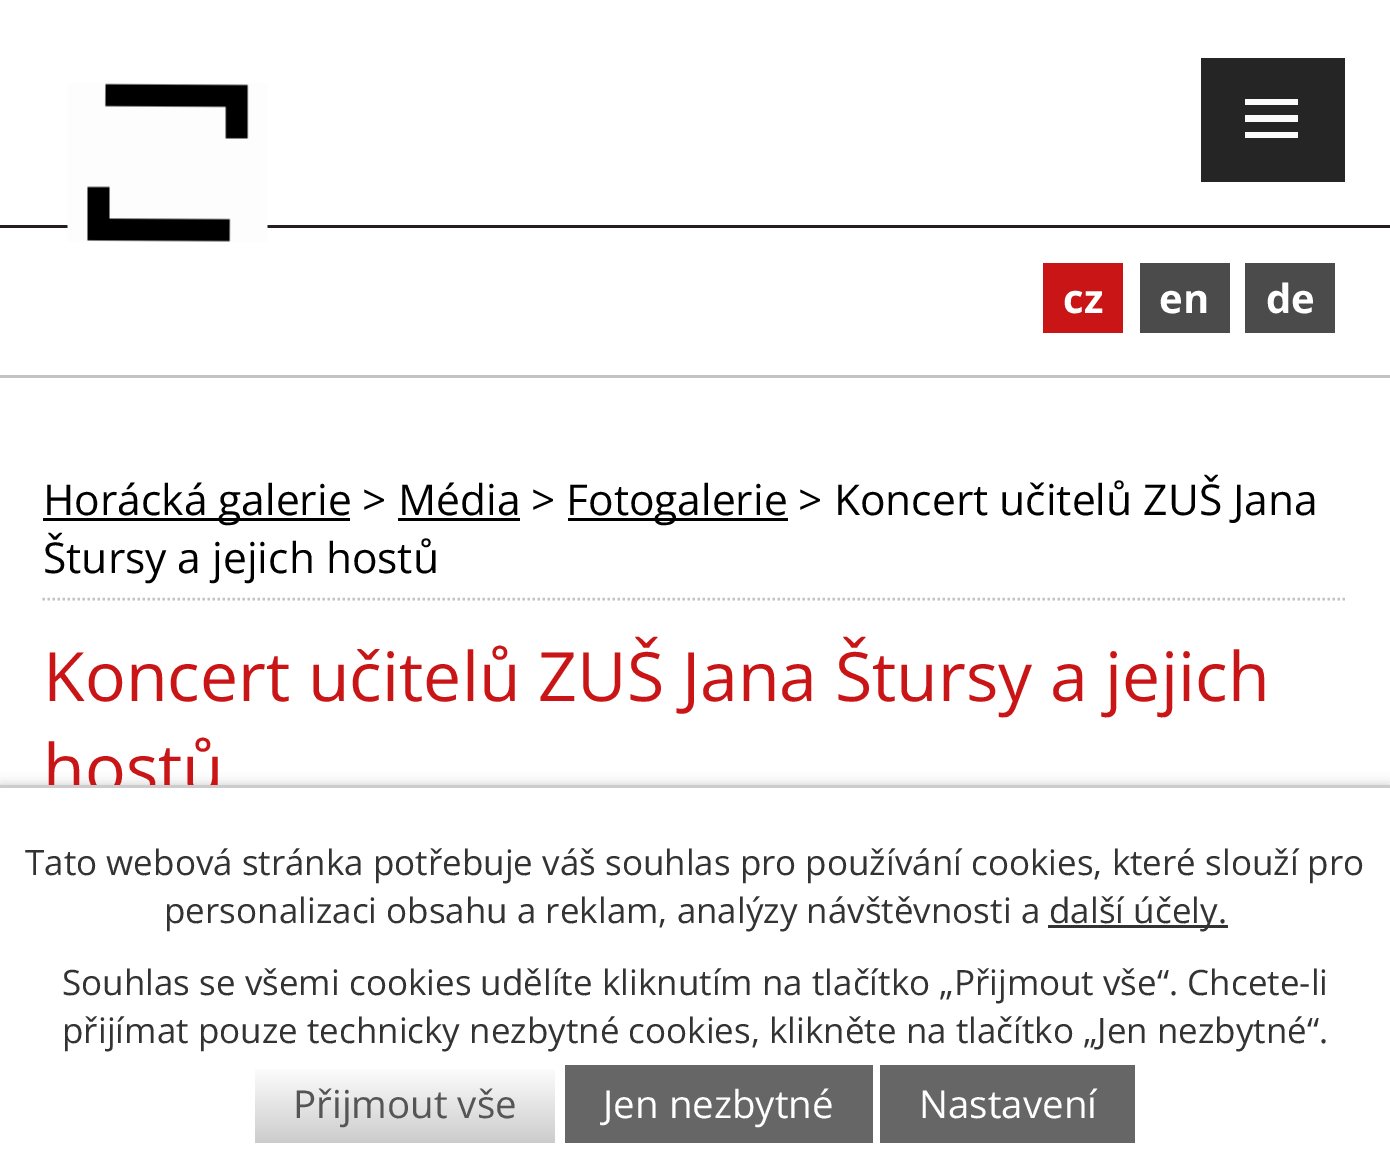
%!PS
<< /PageSize [1390 1155] /PageUsesTransparency true >> setpagedevice
/rgb { 3 { 255 div 3 1 roll } repeat setrgbcolor } def
/font { [ exch dup neg 0 0 3 -1 roll 0 0 ] selectfont } def
/alpha { dup .setfillconstantalpha .setstrokeconstantalpha } def
/roundrect { 5 dict begin { /r /h /w /y /x } { exch def } forall
  x r add y moveto x w add y 2 copy h add r arct x w add y h add x 1 index r arct
  x y h add x y r arct x y 2 copy exch w add exch r arct closepath end } def
/shadow { 12 dict begin { /a /b /q /h /w /y /x } { exch def } forall gsave /was 0 def
  9 -2 -9 { dup b mul 4 div /e exch def 1 sub .425 mul 2.718 exch exp 1 add a .99 .min exch div /now exch def
    1 1 now sub 1 was sub div sub alpha /was now def
    w h .min e 2 mul add 0 gt { x e sub y e sub w e 2 mul add h e 2 mul add
      q e add b .6 mul add w h .min 2 div e add .min 0 .max roundrect fill } if } for grestore end } def
/picture { 5 dict begin { /h /w /y /x /name } { exch def } forall
  gsave x y translate w h scale
  w h 8 [w 0 0 h 0 0] name (r) file false 3 colorimage grestore end } def
0 .pushpdf14devicefilter
0 1155 translate 1 -1 scale
4 setmiterlimit
255 255 255 rgb
0 0 1390 1155 rectfill
37 37 37 rgb
1201 58 144 124 rectfill
251 251 251 rgb
1245 138 moveto 1245 132 lineto 1298 132 lineto 1298 138 lineto closepath 1245 99 moveto 1298 99 lineto 1298 105 lineto 1245 105 lineto closepath 1245 122 moveto 1245 115 lineto 1298 115 lineto 1298 122 lineto closepath fill
195 195 195 rgb
0 375 1390 3 rectfill
35 31 32 rgb
0 225 1390 3 rectfill
(img/1.rgb) 67 83 201 159 picture
[
  [1043 263 80 70 202 21 23]
  [1140 263 90 70 75 75 75]
  [1245 263 90 70 75 75 75]
] { aload pop rgb rectfill } forall
195 195 195 rgb
2.5 setlinewidth
[2.5 2.5] 0 setdash
42.5 599 moveto 1347.5 599 lineto stroke
[
  [43 518 307 3 0 0 0]
  [568 518 220 3 0 0 0]
  [398 518 122 3 0 0 0]
] { aload pop rgb rectfill } forall
0 785 1390 370 0 6 0.2 shadow
/OpenSans-Bold 40 font
255 255 255 rgb
[
  [(cz) 1063 313]
  [(en) 1159 313]
  [(de) 1266 313]
] { aload pop moveto show } forall
/OpenSans-Regular 42.5 font
0 0 0 rgb
[
  [(Horácká galerie > Média >) 43 515]
  [(Fotogalerie > Koncert učitelů ZUŠ Jana) 566 515]
  [(Štursy a jejich hostů) 43 573]
] { aload pop moveto show } forall
/OpenSans-Regular 68 font
202 21 23 rgb
43 701 moveto (Koncert učitelů ZUŠ Jana Štursy a jejich) show
43 793 moveto (hostů) show
255 255 255 rgb
0 788 1390 367 rectfill
204 204 204 rgb
0 785 1390 3 rectfill
/OpenSans-Regular 35 font
51 51 51 rgb
25 875 moveto (Tato webová stránka potřebuje váš souhlas pro používání cookies, které slouží pro) show
164 923 moveto (personalizaci obsahu a reklam, analýzy návštěvnosti a) show
1048 925 180 3 rectfill
[
  [(další účely.) 1049 923]
  [(Souhlas se všemi cookies udělíte kliknutím na tlačítko „Přijmout vše“. Chcete-li) 62 995]
  [(přijímat pouze technicky nezbytné cookies, klikněte na tlačítko „Jen nezbytné“.) 62 1043]
] { aload pop moveto show } forall
gsave 255 1069 moveto 555 1069 lineto 555 1143 lineto 255 1143 lineto closepath clip newpath
<< /ShadingType 2 /ColorSpace /DeviceRGB /Coords [255 1065 255 1143] /Extend [true true] /Function << /FunctionType 2 /Domain [0 1] /C0 [1 1 1] /C1 [0.8 0.8 0.8] /N 1 >> >> shfill grestore
/OpenSans-Regular 38.5 font
85 85 85 rgb
293 1118 moveto (Přijmout vše) show
102 102 102 rgb
565 1065 308 78 rectfill
255 255 255 rgb
603 1118 moveto (Jen nezbytné) show
102 102 102 rgb
880 1065 255 78 rectfill
255 255 255 rgb
919 1118 moveto (Nastavení) show
.poppdf14devicefilter showpage
